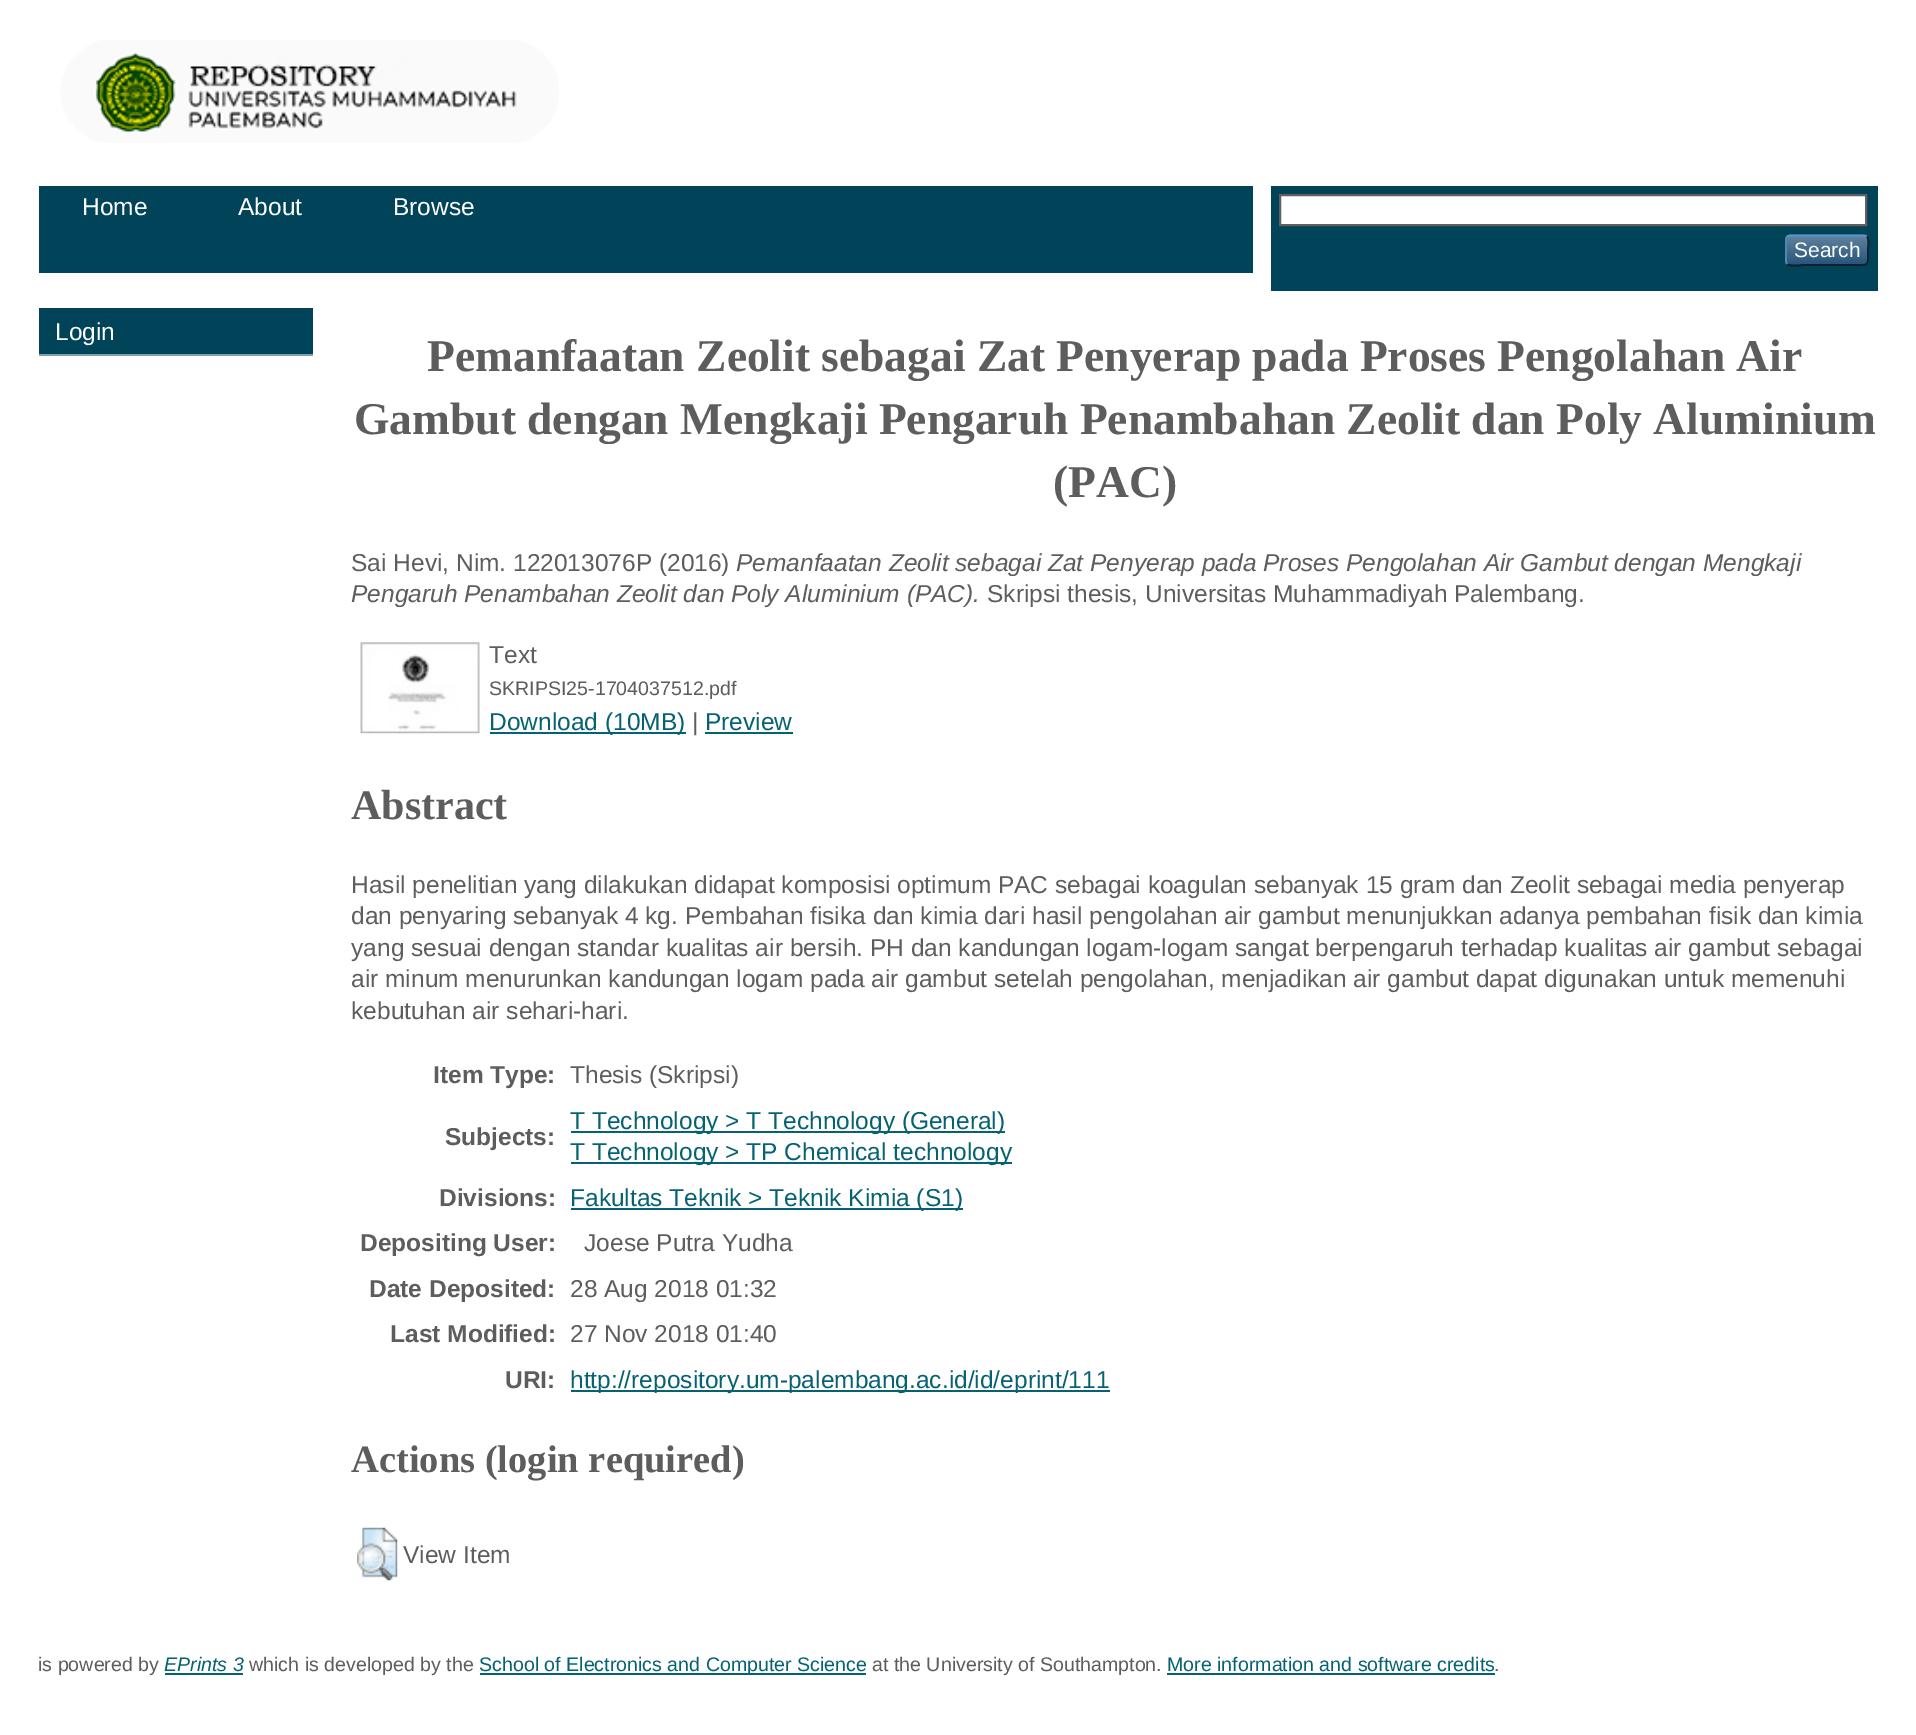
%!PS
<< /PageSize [1916 1735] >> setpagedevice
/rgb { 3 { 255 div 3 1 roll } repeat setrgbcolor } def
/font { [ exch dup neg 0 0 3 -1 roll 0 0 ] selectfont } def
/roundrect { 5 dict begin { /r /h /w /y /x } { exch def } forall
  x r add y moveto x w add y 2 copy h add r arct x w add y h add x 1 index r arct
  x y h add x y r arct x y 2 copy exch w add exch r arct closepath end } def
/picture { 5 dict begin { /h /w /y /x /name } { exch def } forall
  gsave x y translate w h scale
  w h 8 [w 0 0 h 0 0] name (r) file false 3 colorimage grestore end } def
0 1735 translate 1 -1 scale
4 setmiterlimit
255 255 255 rgb
0 0 1916 1735 rectfill
(img/1.rgb) 60 40 499 103 picture
1 67 89 rgb
39 186 1214 87 rectfill
1271 186 607 105 rectfill
255 255 255 rgb
1280 195 moveto 1866 195 lineto 1866 225 lineto 1280 225 lineto closepath gsave fill grestore
96 96 96 rgb
2 setlinewidth
stroke
31 79 118 rgb
1785 235 84 31 5 roundrect fill
(img/2.rgb) 1785 234 84 32 picture
91 151 199 rgb
1.8 setlinewidth
1787 236.5 moveto 1790 235.5 lineto 1864 235.5 lineto 1867 236.5 lineto stroke
13 33 49 rgb
1867 236.5 moveto 1869.5 239.5 1868 247 1868 250 curveto 1868 267.5 1869.5 265 1851.5 265 curveto 1802.5 265 lineto 1802.5 265 1790.5 267 1787 264 curveto stroke
82 135 179 rgb
1787 264 moveto 1786.5 263 1786 262 1786 261 curveto 1786 240 lineto 1786 238.5 1786.5 237.5 1787 236.5 curveto stroke
1 67 89 rgb
39 308 274 46 rectfill
128 161 172 rgb
39 354 274 2 rectfill
(img/3.rgb) 360 642 120 92 picture
[
  [490 732 196 2 5 98 115]
  [705 732 88 2 5 98 115]
  [571 1131 434 2 5 98 115]
  [571 1162 441 2 5 98 115]
  [571 1208 392 2 5 98 115]
  [571 1390 539 2 5 98 115]
] { aload pop rgb rectfill } forall
(img/4.rgb) 357 1527 41 54 picture
[
  [165 1673 78 2 5 98 115]
  [480 1673 386 2 5 98 115]
  [1167 1673 328 2 5 98 115]
] { aload pop rgb rectfill } forall
/LiberationSans-Regular 24.5 font
255 255 255 rgb
[
  [(Home) 82 215]
  [(About) 238 215]
  [(Browse) 393 215]
] { aload pop moveto show } forall
/LiberationSans-Regular 21 font
1794 257 moveto (Search) show
/LiberationSans-Regular 24.5 font
55 340 moveto (Login) show
/LiberationSerif-Bold 45.5 font
93 93 93 rgb
[
  [(Pemanfaatan Zeolit sebagai Zat Penyerap pada Proses Pengolahan Air) 427 371]
  [(Gambut dengan Mengkaji Pengaruh Penambahan Zeolit dan Poly Aluminium) 354 434]
  [(\(PAC\)) 1053 497]
] { aload pop moveto show } forall
/LiberationSans-Regular 24.5 font
351 571 moveto (Sai Hevi, Nim. 122013076P \(2016\)) show
/LiberationSans-Italic 24.5 font
736 571 moveto (Pemanfaatan Zeolit sebagai Zat Penyerap pada Proses Pengolahan Air Gambut dengan Mengkaji) show
351 602 moveto (Pengaruh Penambahan Zeolit dan Poly Aluminium \(PAC\).) show
/LiberationSans-Regular 24.5 font
987 602 moveto (Skripsi thesis, Universitas Muhammadiyah Palembang.) show
489 663 moveto (Text) show
/LiberationSans-Regular 19.6 font
489 695 moveto (SKRIPSI25-1704037512.pdf) show
/LiberationSans-Regular 24.5 font
5 98 115 rgb
489 730 moveto (Download \(10MB\)) show
93 93 93 rgb
692 730 moveto (|) show
5 98 115 rgb
705 730 moveto (Preview) show
/LiberationSerif-Bold 42 font
93 93 93 rgb
351 819 moveto (Abstract) show
/LiberationSans-Regular 24.5 font
[
  [(Hasil penelitian yang dilakukan didapat komposisi optimum PAC sebagai koagulan sebanyak 15 gram dan Zeolit sebagai media penyerap) 351 893]
  [(dan penyaring sebanyak 4 kg. Pembahan fisika dan kimia dari hasil pengolahan air gambut menunjukkan adanya pembahan fisik dan kimia) 351 924]
  [(yang sesuai dengan standar kualitas air bersih. PH dan kandungan logam-logam sangat berpengaruh terhadap kualitas air gambut sebagai) 351 956]
  [(air minum menurunkan kandungan logam pada air gambut setelah pengolahan, menjadikan air gambut dapat digunakan untuk memenuhi) 351 987]
  [(kebutuhan air sehari-hari.) 351 1019]
] { aload pop moveto show } forall
/LiberationSans-Bold 24.5 font
433 1083 moveto (Item Type:) show
/LiberationSans-Regular 24.5 font
570 1083 moveto (Thesis \(Skripsi\)) show
/LiberationSans-Bold 24.5 font
445 1145 moveto (Subjects:) show
/LiberationSans-Regular 24.5 font
5 98 115 rgb
570 1129 moveto (T Technology > T Technology \(General\)) show
570 1160 moveto (T Technology > TP Chemical technology) show
/LiberationSans-Bold 24.5 font
93 93 93 rgb
439 1206 moveto (Divisions:) show
/LiberationSans-Regular 24.5 font
5 98 115 rgb
570 1206 moveto (Fakultas Teknik > Teknik Kimia \(S1\)) show
/LiberationSans-Bold 24.5 font
93 93 93 rgb
360 1251 moveto (Depositing User:) show
/LiberationSans-Regular 24.5 font
584 1251 moveto (Joese Putra Yudha) show
/LiberationSans-Bold 24.5 font
369 1297 moveto (Date Deposited:) show
/LiberationSans-Regular 24.5 font
570 1297 moveto (28 Aug 2018 01:32) show
/LiberationSans-Bold 24.5 font
390 1342 moveto (Last Modified:) show
/LiberationSans-Regular 24.5 font
570 1342 moveto (27 Nov 2018 01:40) show
/LiberationSans-Bold 24.5 font
505 1388 moveto (URI:) show
/LiberationSans-Regular 24.5 font
5 98 115 rgb
570 1388 moveto (http://repository.um-palembang.ac.id/id/eprint/111) show
/LiberationSerif-Bold 38.5 font
93 93 93 rgb
351 1472 moveto (Actions \(login required\)) show
/LiberationSans-Regular 24.5 font
403 1563 moveto (View Item) show
/LiberationSans-Regular 19.6 font
38 1671 moveto (is powered by) show
/LiberationSans-Italic 19.6 font
5 98 115 rgb
164 1671 moveto (EPrints 3) show
/LiberationSans-Regular 19.6 font
93 93 93 rgb
249 1671 moveto (which is developed by the) show
5 98 115 rgb
479 1671 moveto (School of Electronics and Computer Science) show
93 93 93 rgb
872 1671 moveto (at the University of Southampton.) show
5 98 115 rgb
1167 1671 moveto (More information and software credits) show
93 93 93 rgb
1494 1671 moveto (.) show
showpage
